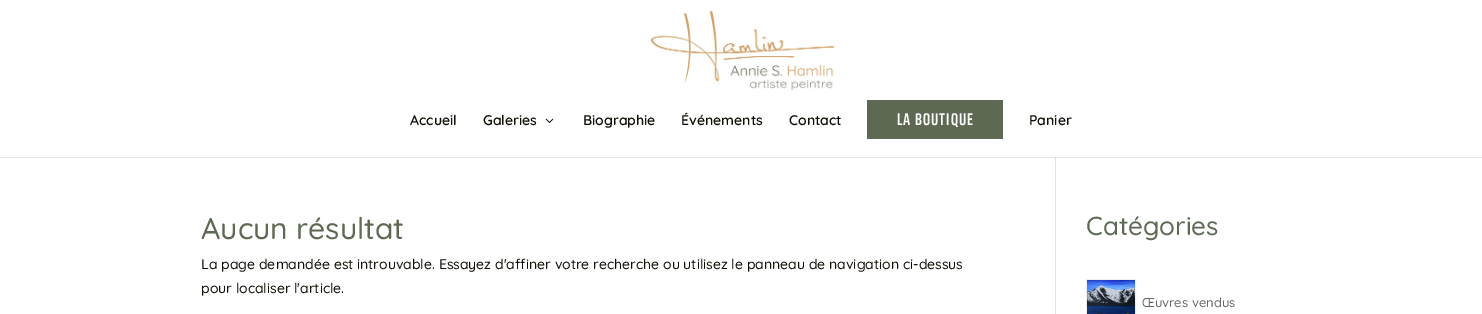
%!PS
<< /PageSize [1482 314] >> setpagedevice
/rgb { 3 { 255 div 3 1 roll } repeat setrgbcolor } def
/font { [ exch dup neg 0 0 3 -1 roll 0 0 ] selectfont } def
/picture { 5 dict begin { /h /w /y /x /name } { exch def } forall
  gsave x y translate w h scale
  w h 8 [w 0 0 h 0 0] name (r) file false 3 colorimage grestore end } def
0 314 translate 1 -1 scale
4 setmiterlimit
255 255 255 rgb
0 0 1482 314 rectfill
[
  [0 157 1482 1 230 230 230]
  [1055 155 1 159 226 226 226]
  [1055 155 1 2 255 255 255]
] { aload pop rgb rectfill } forall
(img/1.rgb) 650 10 185 80 picture
(img/2.rgb) 545 118 9 5 picture
93 105 83 rgb
867 100 136 39 rectfill
203 203 203 rgb
1055 157 1 1 rectfill
238 238 238 rgb
1086.5 279.5 49 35 rectstroke
(img/3.rgb) 1087 280 48 34 picture
/Quicksand-SemiBold 14 font
16 13 4 rgb
[
  [(Accueil) 410 125]
  [(Galeries) 483 125]
  [(Biographie) 583 125]
  [(Événements) 681 125]
  [(Contact) 789 125]
] { aload pop moveto show } forall
/SairaExtraCondensed-SemiBold 17 font
255 255 255 rgb
897 125 moveto 1 0 (LA BOUTIQUE) ashow
/Quicksand-SemiBold 14 font
16 13 4 rgb
1029 125 moveto (Panier) show
/Quicksand-Light 30 font
93 105 83 rgb
201 239 moveto (Aucun résultat) show
/Quicksand-Light 14 font
16 13 4 rgb
201 269 moveto (La page demandée est introuvable. Essayez d'affiner votre recherche ou utilisez le panneau de navigation ci-dessus) show
201 293 moveto (pour localiser l'article.) show
/Quicksand-Light 26 font
93 105 83 rgb
1086 235 moveto (Catégories) show
/Quicksand-Light 13 font
102 102 102 rgb
1142 307 moveto (Œuvres vendus) show
showpage
